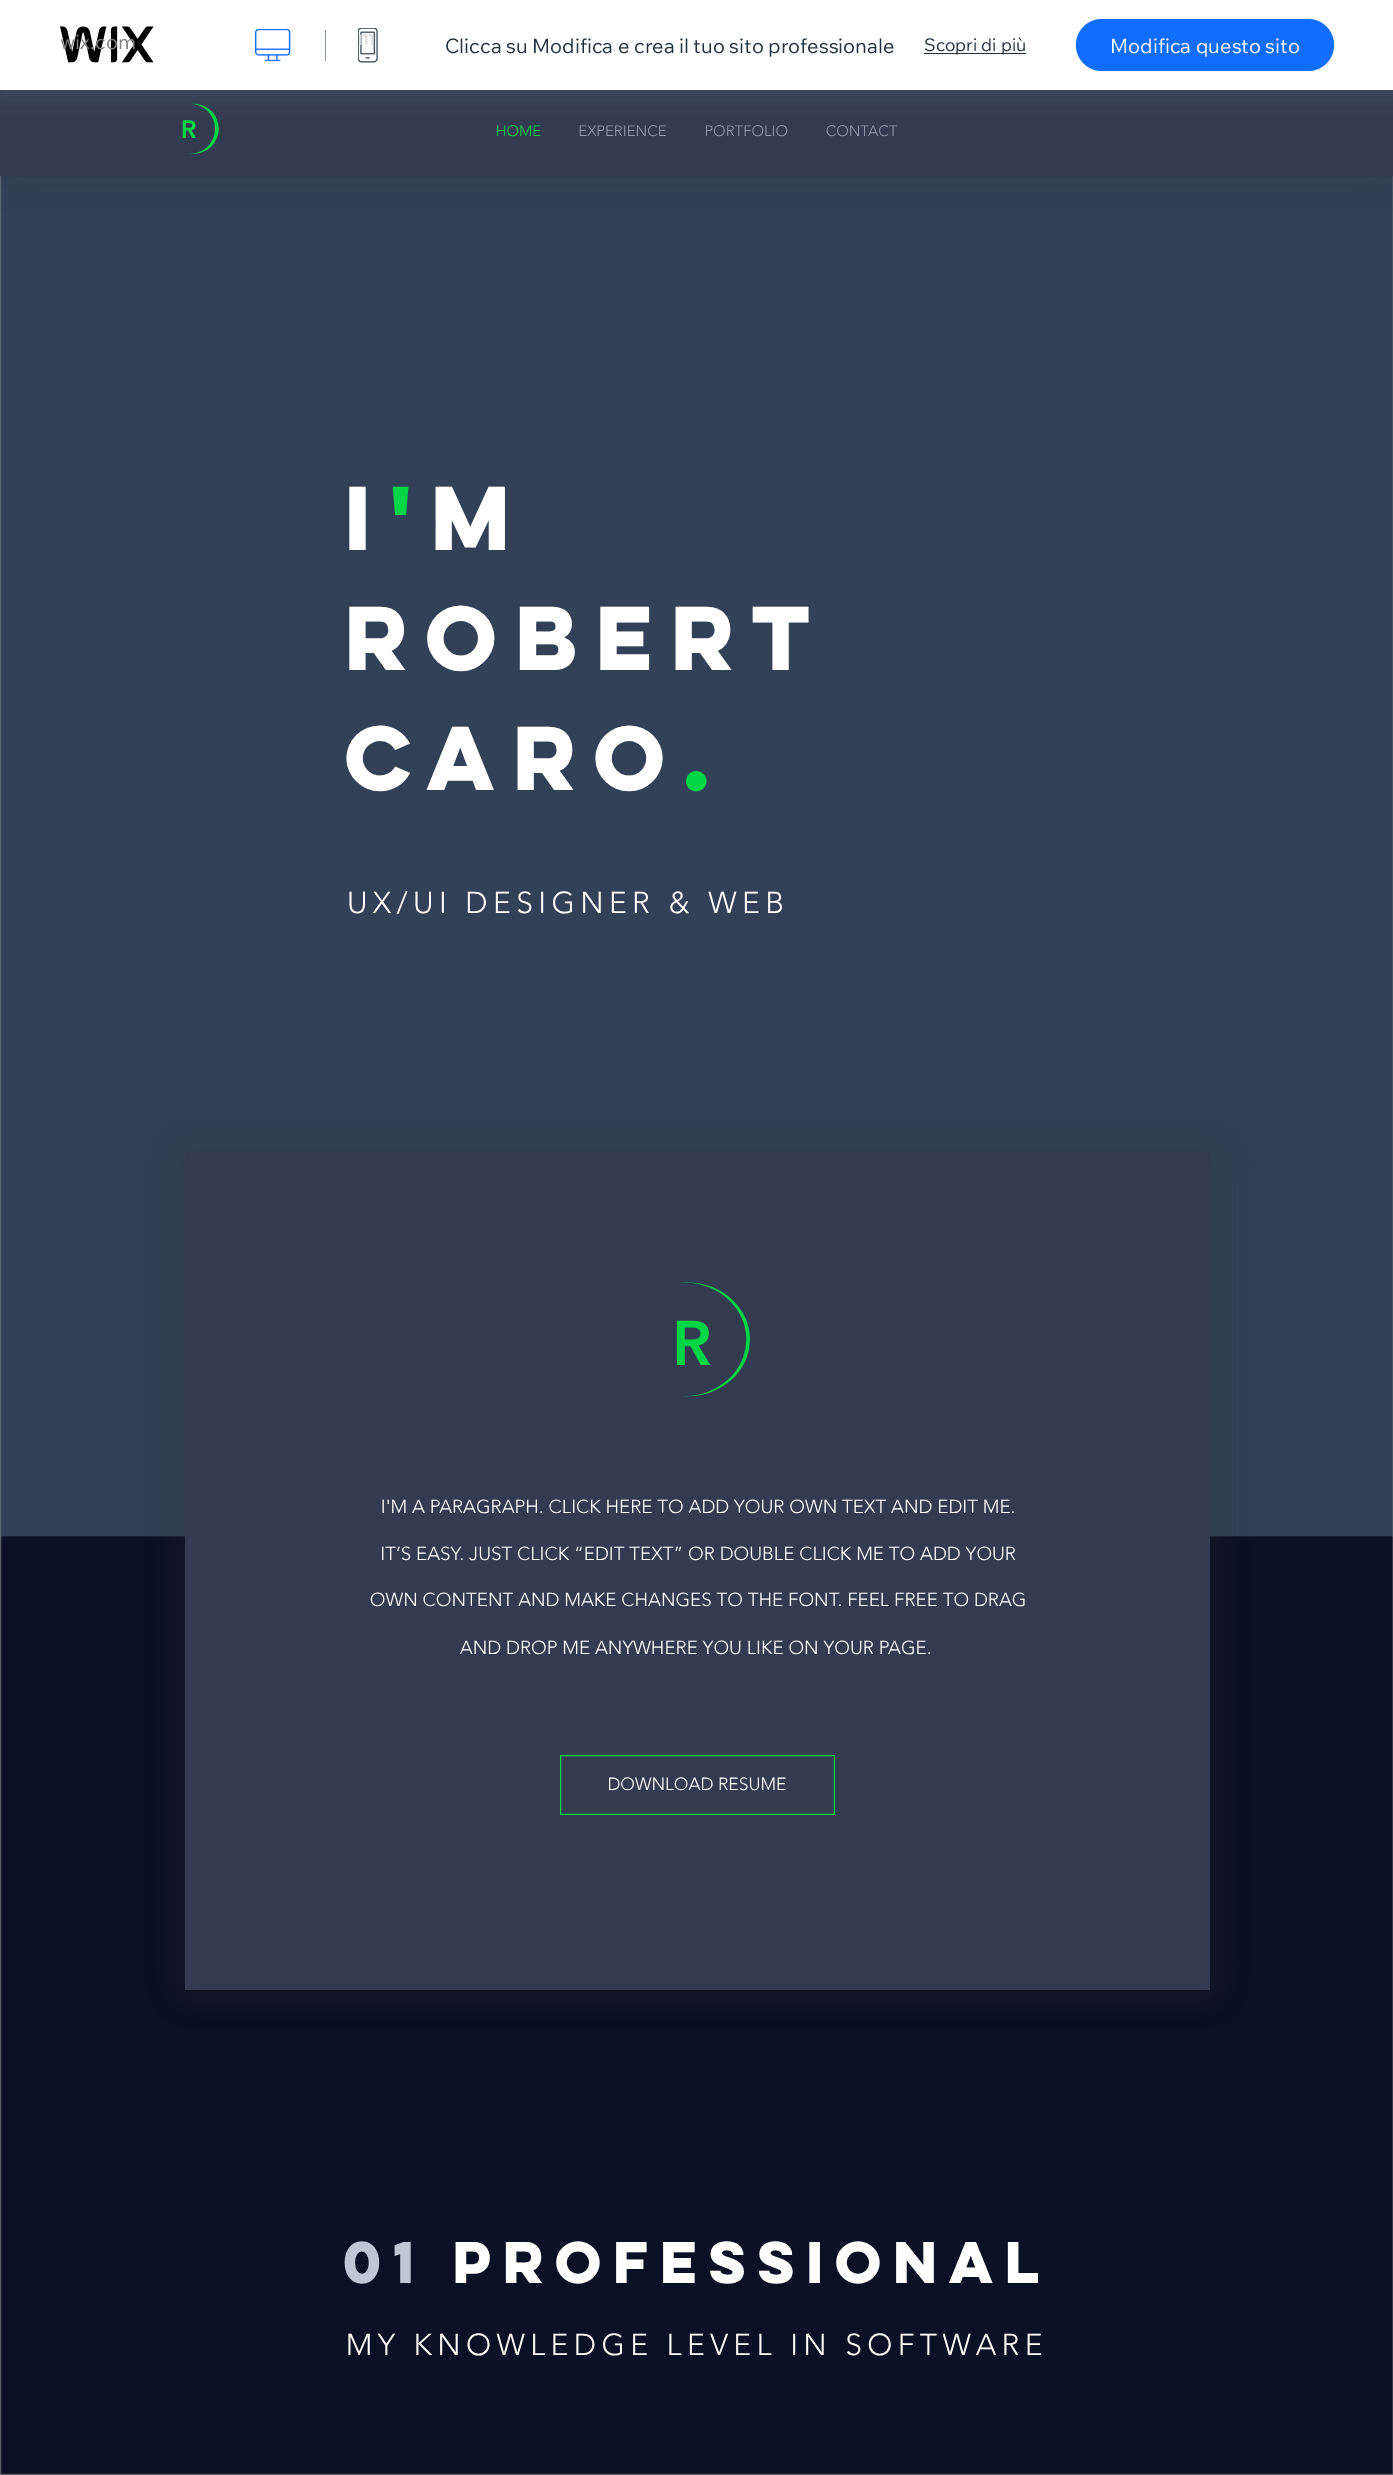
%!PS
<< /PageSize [1393 2475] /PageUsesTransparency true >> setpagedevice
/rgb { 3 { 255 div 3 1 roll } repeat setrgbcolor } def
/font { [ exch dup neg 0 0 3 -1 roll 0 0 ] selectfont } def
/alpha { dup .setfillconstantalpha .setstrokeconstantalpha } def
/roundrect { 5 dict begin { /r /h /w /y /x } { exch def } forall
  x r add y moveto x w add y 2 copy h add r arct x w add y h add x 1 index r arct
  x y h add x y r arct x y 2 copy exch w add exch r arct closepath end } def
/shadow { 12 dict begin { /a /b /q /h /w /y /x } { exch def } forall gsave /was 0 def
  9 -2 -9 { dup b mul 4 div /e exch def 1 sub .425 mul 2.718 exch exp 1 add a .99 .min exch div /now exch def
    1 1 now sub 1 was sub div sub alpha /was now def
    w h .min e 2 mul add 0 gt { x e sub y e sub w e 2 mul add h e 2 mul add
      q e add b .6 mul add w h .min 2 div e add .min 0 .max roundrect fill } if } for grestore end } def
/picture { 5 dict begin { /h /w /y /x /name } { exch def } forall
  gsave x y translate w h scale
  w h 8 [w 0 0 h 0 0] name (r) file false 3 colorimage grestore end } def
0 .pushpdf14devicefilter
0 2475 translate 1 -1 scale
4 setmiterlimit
255 255 255 rgb
0 0 1393 2475 rectfill
(img/4.rgb) 0 90 1393 2385 picture
129 162 182 rgb
0 3 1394 90 0 11 0.2 shadow
255 255 255 rgb
0 0 1393 90 rectfill
(img/1.rgb) 60 26 94 37 picture
(img/2.rgb) 255 29 36 32 picture
144 152 158 rgb
325 30 1 31 rectfill
(img/3.rgb) 358 28 20 35 picture
32 48 60 rgb
924 53 102 1 rectfill
17 109 255 rgb
1076 19 258 52 26 roundrect fill
/WixMadeforText-Regular 20 font
129 129 129 rgb
60 49 moveto (wix.com) show
/LiberationSans-Regular 20 font
214 217 219 rgb
358 45 moveto (m) show
/WixMadeforText-Regular 20 font
32 48 60 rgb
445 53 moveto (Clicca su Modifica e crea il tuo sito professionale) show
/WixMadeforText-Regular 17.5 font
924 51 moveto (Scopri di più) show
/WixMadeforText-Regular 20 font
255 255 255 rgb
1110 53 moveto (Modifica questo sito) show
.poppdf14devicefilter showpage
